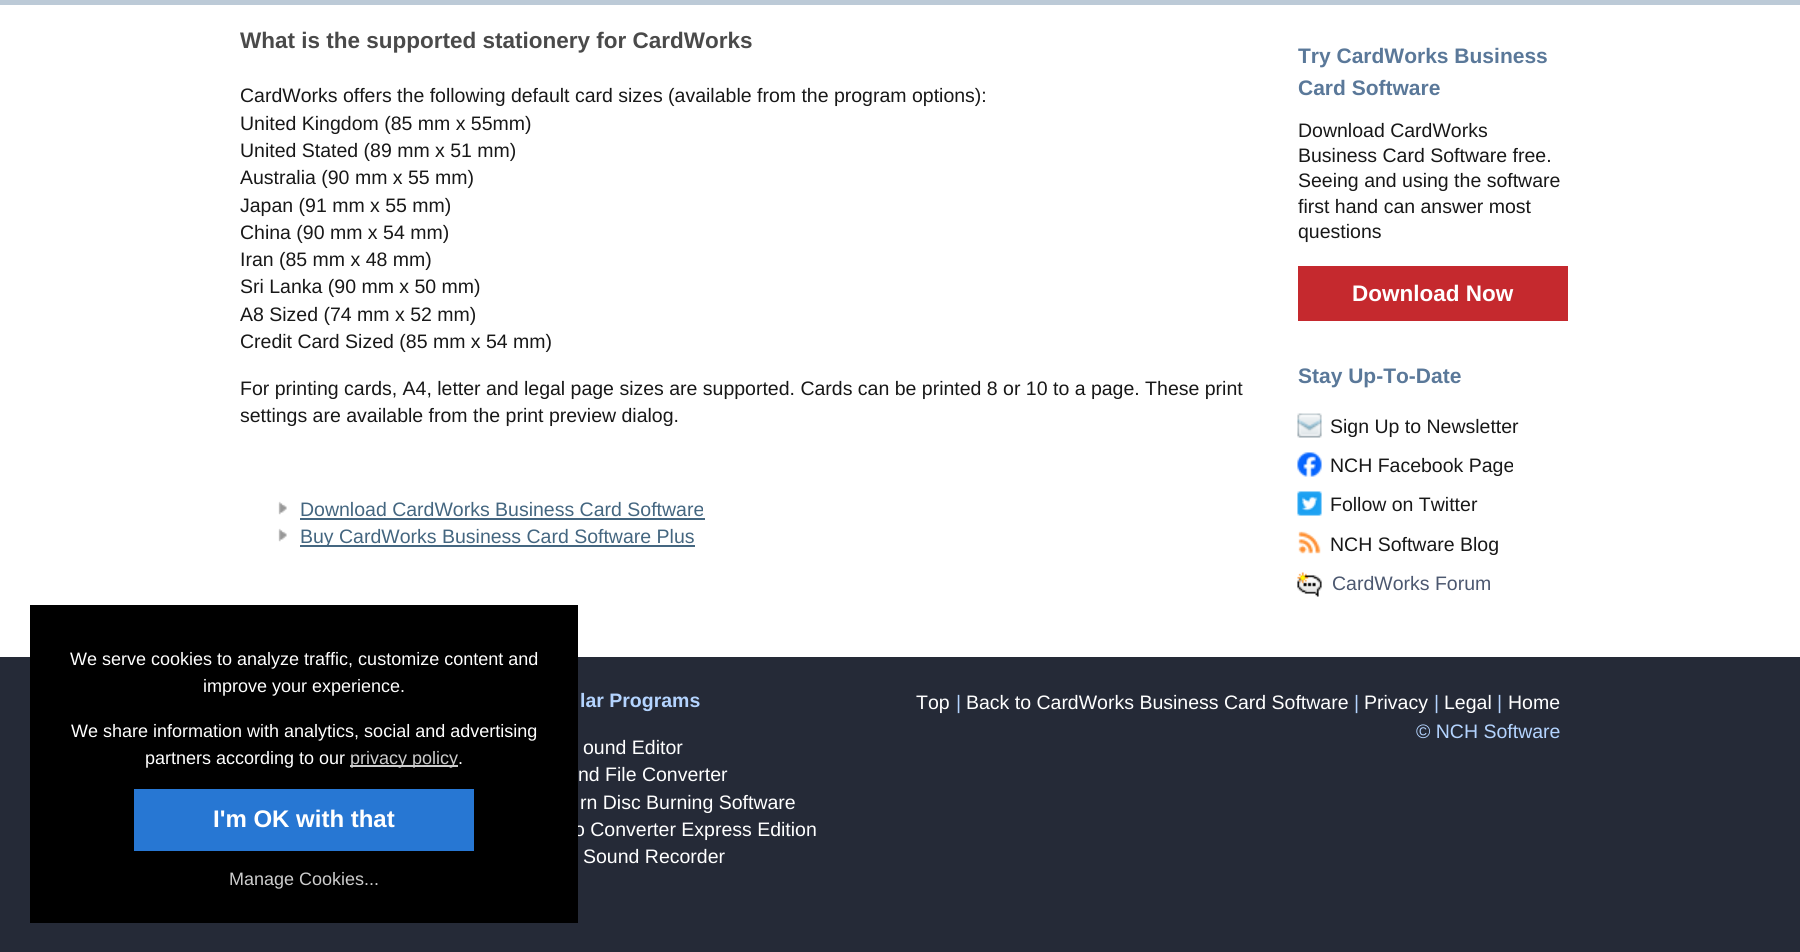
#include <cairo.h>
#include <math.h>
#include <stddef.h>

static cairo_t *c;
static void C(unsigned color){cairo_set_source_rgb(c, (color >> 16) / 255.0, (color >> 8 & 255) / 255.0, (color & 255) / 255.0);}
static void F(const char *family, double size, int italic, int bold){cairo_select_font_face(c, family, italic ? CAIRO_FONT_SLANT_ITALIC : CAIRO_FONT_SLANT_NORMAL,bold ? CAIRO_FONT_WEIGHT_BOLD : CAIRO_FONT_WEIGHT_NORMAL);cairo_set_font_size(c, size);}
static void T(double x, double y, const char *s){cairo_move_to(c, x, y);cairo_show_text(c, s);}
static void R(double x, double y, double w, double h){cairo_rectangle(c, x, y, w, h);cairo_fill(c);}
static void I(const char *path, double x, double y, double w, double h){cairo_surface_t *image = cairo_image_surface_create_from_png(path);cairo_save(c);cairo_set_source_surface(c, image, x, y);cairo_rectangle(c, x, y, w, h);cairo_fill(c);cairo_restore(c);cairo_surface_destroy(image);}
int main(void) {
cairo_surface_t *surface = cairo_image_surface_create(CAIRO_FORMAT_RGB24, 1800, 952);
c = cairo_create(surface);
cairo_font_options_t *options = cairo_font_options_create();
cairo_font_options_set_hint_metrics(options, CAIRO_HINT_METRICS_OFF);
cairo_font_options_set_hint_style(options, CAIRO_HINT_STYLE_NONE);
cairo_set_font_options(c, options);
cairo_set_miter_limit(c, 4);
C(0xffffff);
cairo_paint(c);
C(0xbccad7);
R(0,0,1800,5);
F("Liberation Sans",22.5,0,1);
C(0x4a4a4a);
T(240,48,"What is the supported stationery for CardWorks");
F("Liberation Sans",19.5,0,0);
C(0x181818);
T(240,102,"CardWorks offers the following default card sizes (available from the program options):");
T(240,130,"United Kingdom (85 mm x 55mm)");
T(240,157,"United Stated (89 mm x 51 mm)");
T(240,184,"Australia (90 mm x 55 mm)");
T(240,212,"Japan (91 mm x 55 mm)");
T(240,239,"China (90 mm x 54 mm)");
T(240,266,"Iran (85 mm x 48 mm)");
T(240,293,"Sri Lanka (90 mm x 50 mm)");
T(240,321,"A8 Sized (74 mm x 52 mm)");
T(240,348,"Credit Card Sized (85 mm x 54 mm)");
T(240,395,"For printing cards, A4, letter and legal page sizes are supported. Cards can be printed 8 or 10 to a page. These print");
T(240,422,"settings are available from the print preview dialog.");
I("1.png",278,501,9,14);
C(0x446680);
T(300,516,"Download CardWorks Business Card Software");
R(300,518,405,2);
I("1.png",278,528,9,14);
R(300,545,395,2);
T(300,543,"Buy CardWorks Business Card Software Plus");
F("Liberation Sans",21,0,1);
C(0x5a7899);
T(1298,63,"Try CardWorks Business");
T(1298,95,"Card Software");
F("Liberation Sans",19.5,0,0);
C(0x181818);
T(1298,137,"Download CardWorks");
T(1298,162,"Business Card Software free.");
T(1298,187,"Seeing and using the software");
T(1298,213,"first hand can answer most");
T(1298,238,"questions");
C(0xc5292e);
R(1298,266,270,55);
F("Liberation Sans",22.5,0,1);
C(0xffffff);
T(1352,301,"Download Now");
F("Liberation Sans",21,0,1);
C(0x5a7899);
T(1298,383,"Stay Up-To-Date");
I("2.png",1297,413,25,25);
F("Liberation Sans",19.5,0,0);
C(0x181818);
T(1330,433,"Sign Up to Newsletter");
I("3.png",1297,452,25,25);
T(1330,472,"NCH Facebook Page");
I("4.png",1297,491,25,25);
T(1330,511,"Follow on Twitter");
I("5.png",1298,531,23,23);
T(1330,551,"NCH Software Blog");
I("6.png",1297,572,25,25);
C(0x4c5870);
T(1332,590,"CardWorks Forum");
C(0x252a37);
R(0,657,1800,295);
C(0xffffff);
T(574,836,"o Converter Express Edition");
C(0x000000);
R(30,605,548,318);
F("Liberation Sans",18,0,0);
C(0xffffff);
T(70,665,"We serve cookies to analyze traffic, customize content and");
T(203,692,"improve your experience.");
T(71,737,"We share information with analytics, social and advertising");
T(145,764,"partners according to our");
C(0xcccccc);
R(350,765,108,2);
T(350,764,"privacy policy");
C(0xffffff);
T(458,764,".");
C(0x2777d3);
R(134,789,340,62);
F("Liberation Sans",24,0,1);
C(0xffffff);
T(213,827,"I'm OK with that");
F("Liberation Sans",18,0,0);
C(0xcccccc);
T(229,885,"Manage Cookies...");
F("Liberation Sans",19.5,0,1);
C(0xb4d4ff);
T(580,707,"lar Programs");
F("Liberation Sans",19.5,0,0);
C(0xffffff);
T(583,754,"ound Editor");
T(578,781,"nd File Converter");
T(580,809,"rn Disc Burning Software");
T(583,863,"Sound Recorder");
T(916,709,"Top");
C(0xb4d4ff);
T(956,709,"|");
C(0xffffff);
T(966,709,"Back to CardWorks Business Card Software");
C(0xb4d4ff);
T(1354,709,"|");
C(0xffffff);
T(1364,709,"Privacy");
C(0xb4d4ff);
T(1434,709,"|");
C(0xffffff);
T(1444,709,"Legal");
C(0xb4d4ff);
T(1497,709,"|");
C(0xffffff);
T(1508,709,"Home");
C(0xb4d4ff);
T(1416,738,"© NCH Software");
cairo_surface_write_to_png(surface, "o.png");
cairo_font_options_destroy(options);
cairo_destroy(c);
cairo_surface_destroy(surface);
return 0;
}
